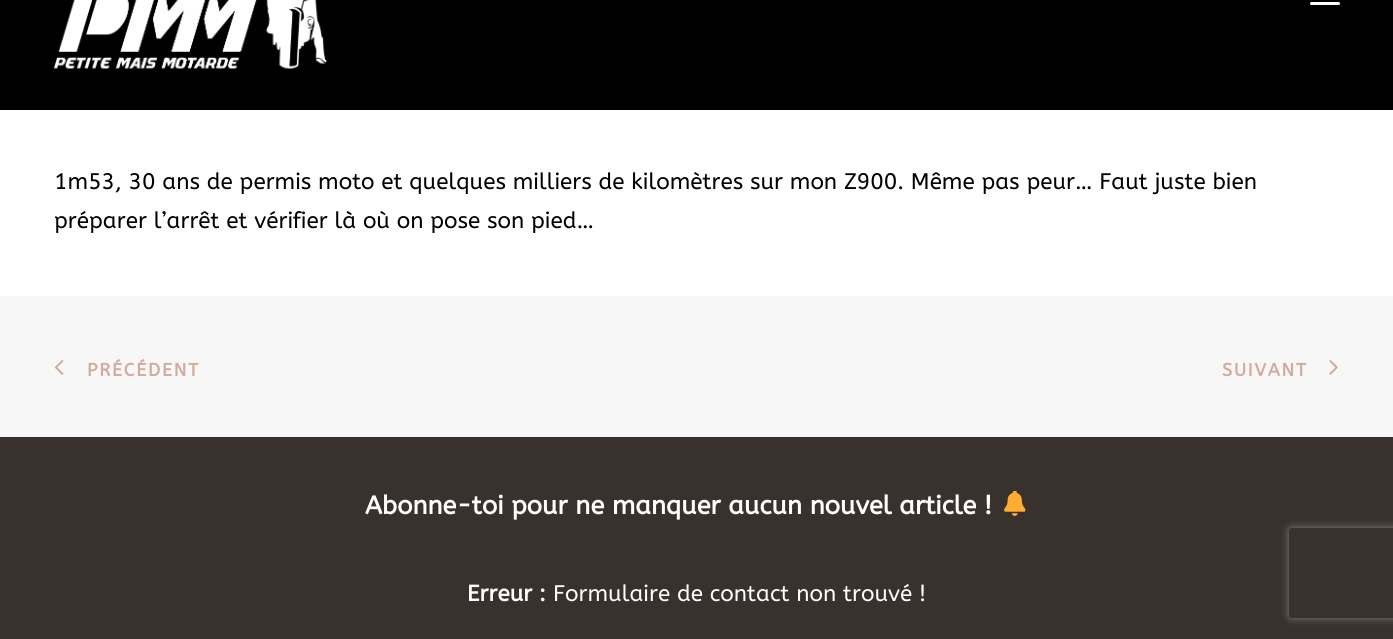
#include <cairo.h>
#include <math.h>
#include <stddef.h>

static cairo_t *c;
static void C(unsigned color){cairo_set_source_rgb(c, (color >> 16) / 255.0, (color >> 8 & 255) / 255.0, (color & 255) / 255.0);}
static void F(const char *family, double size, int italic, int bold){cairo_select_font_face(c, family, italic ? CAIRO_FONT_SLANT_ITALIC : CAIRO_FONT_SLANT_NORMAL,bold ? CAIRO_FONT_WEIGHT_BOLD : CAIRO_FONT_WEIGHT_NORMAL);cairo_set_font_size(c, size);}
static void T(double x, double y, const char *s){cairo_move_to(c, x, y);cairo_show_text(c, s);}
static void L(double x, double y, const char *s, double letter, double word){cairo_move_to(c, x, y);while (*s) {char ch[5] = {0};int n = 0;do ch[n++] = *s++; while ((*s & 0xC0) == 0x80);cairo_show_text(c, ch);cairo_rel_move_to(c, letter + word * (*ch == ' '), 0);}}
static void R(double x, double y, double w, double h){cairo_rectangle(c, x, y, w, h);cairo_fill(c);}
static void Q(double x, double y, double w, double h, double r){cairo_new_sub_path(c);cairo_arc(c, x + w - r, y + h - r, r, 0, M_PI / 2);cairo_arc(c, x + r, y + h - r, r, M_PI / 2, M_PI);cairo_arc(c, x + r, y + r, r, M_PI, 1.5 * M_PI);cairo_arc(c, x + w - r, y + r, r, 1.5 * M_PI, 2 * M_PI);cairo_close_path(c);}
static void S(double x, double y, double w, double h, double r, double blur, double alpha){cairo_push_group_with_content(c, CAIRO_CONTENT_ALPHA);cairo_set_operator(c, CAIRO_OPERATOR_SOURCE);for (int i = 15; i >= -15 && fmin(w, h) + blur * i / 3 > 0; i -= 2) {double e = blur * i / 6;cairo_set_source_rgba(c, 0, 0, 0, alpha * erfc((i - 1) / 8.5) / 2);Q(x - e, y - e, w + 2 * e, h + 2 * e, fmax(0, fmin(r + e + blur * .6, fmin(w, h) / 2 + e)));cairo_fill(c);}cairo_pattern_t *soft = cairo_pop_group(c);cairo_mask(c, soft);cairo_pattern_destroy(soft);}
static void I(const char *path, double x, double y, double w, double h){cairo_surface_t *image = cairo_image_surface_create_from_png(path);cairo_save(c);cairo_set_source_surface(c, image, x, y);cairo_rectangle(c, x, y, w, h);cairo_fill(c);cairo_restore(c);cairo_surface_destroy(image);}
int main(void) {
cairo_surface_t *surface = cairo_image_surface_create(CAIRO_FORMAT_RGB24, 1393, 639);
c = cairo_create(surface);
cairo_font_options_t *options = cairo_font_options_create();
cairo_font_options_set_hint_metrics(options, CAIRO_HINT_METRICS_OFF);
cairo_font_options_set_hint_style(options, CAIRO_HINT_STYLE_NONE);
cairo_set_font_options(c, options);
cairo_set_miter_limit(c, 4);
C(0xffffff);
cairo_paint(c);
C(0x000000);
R(0,0,1393,110);
I("1.png",54,0,273,69);
C(0xffffff);
Q(1310,2,30,3,1.5);
cairo_fill(c);
F("ABeeZee",22.5,0,0);
C(0x000000);
T(54,189,"1m53, 30 ans de permis moto et quelques milliers de kilomètres sur mon Z900. Même pas peur… Faut juste bien");
T(54,228,"préparer l’arrêt et vérifier là où on pose son pied…");
C(0xf7f7f7);
R(0,296,1393,141);
I("2.png",54,359,10,16);
F("ABeeZee",18,0,1);
C(0xd3ab9e);
L(87,376,"PRÉCÉDENT",1.75,0);
L(1222,376,"SUIVANT",1.75,0);
I("3.png",1329,359,9,16);
C(0x39312e);
R(0,437,1393,202);
F("ABeeZee",25.5,0,1);
C(0xffffff);
T(365,514,"Abonne-toi pour ne manquer aucun nouvel article !");
I("4.png",1004,491,22,25);
F("ABeeZee",22.5,0,1);
T(467,601,"Erreur :");
F("ABeeZee",22.5,0,0);
T(553,601,"Formulaire de contact non trouvé !");
cairo_save(c);
cairo_set_fill_rule(c,CAIRO_FILL_RULE_EVEN_ODD);
cairo_new_path(c);
cairo_move_to(c,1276,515);
cairo_line_to(c,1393,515);
cairo_line_to(c,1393,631);
cairo_line_to(c,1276,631);
cairo_close_path(c);
cairo_move_to(c,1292,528);
cairo_line_to(c,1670,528);
cairo_curve_to(c,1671.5,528,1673,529.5,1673,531);
cairo_line_to(c,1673,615);
cairo_curve_to(c,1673,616.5,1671.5,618,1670,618);
cairo_line_to(c,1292,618);
cairo_curve_to(c,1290.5,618,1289,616.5,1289,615);
cairo_line_to(c,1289,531);
cairo_curve_to(c,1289,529.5,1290.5,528,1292,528);
cairo_close_path(c);
cairo_clip(c);
C(0x808080);
S(1289,528,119,90,3,4,1);
cairo_restore(c);
cairo_surface_write_to_png(surface, "o.png");
cairo_font_options_destroy(options);
cairo_destroy(c);
cairo_surface_destroy(surface);
return 0;
}
